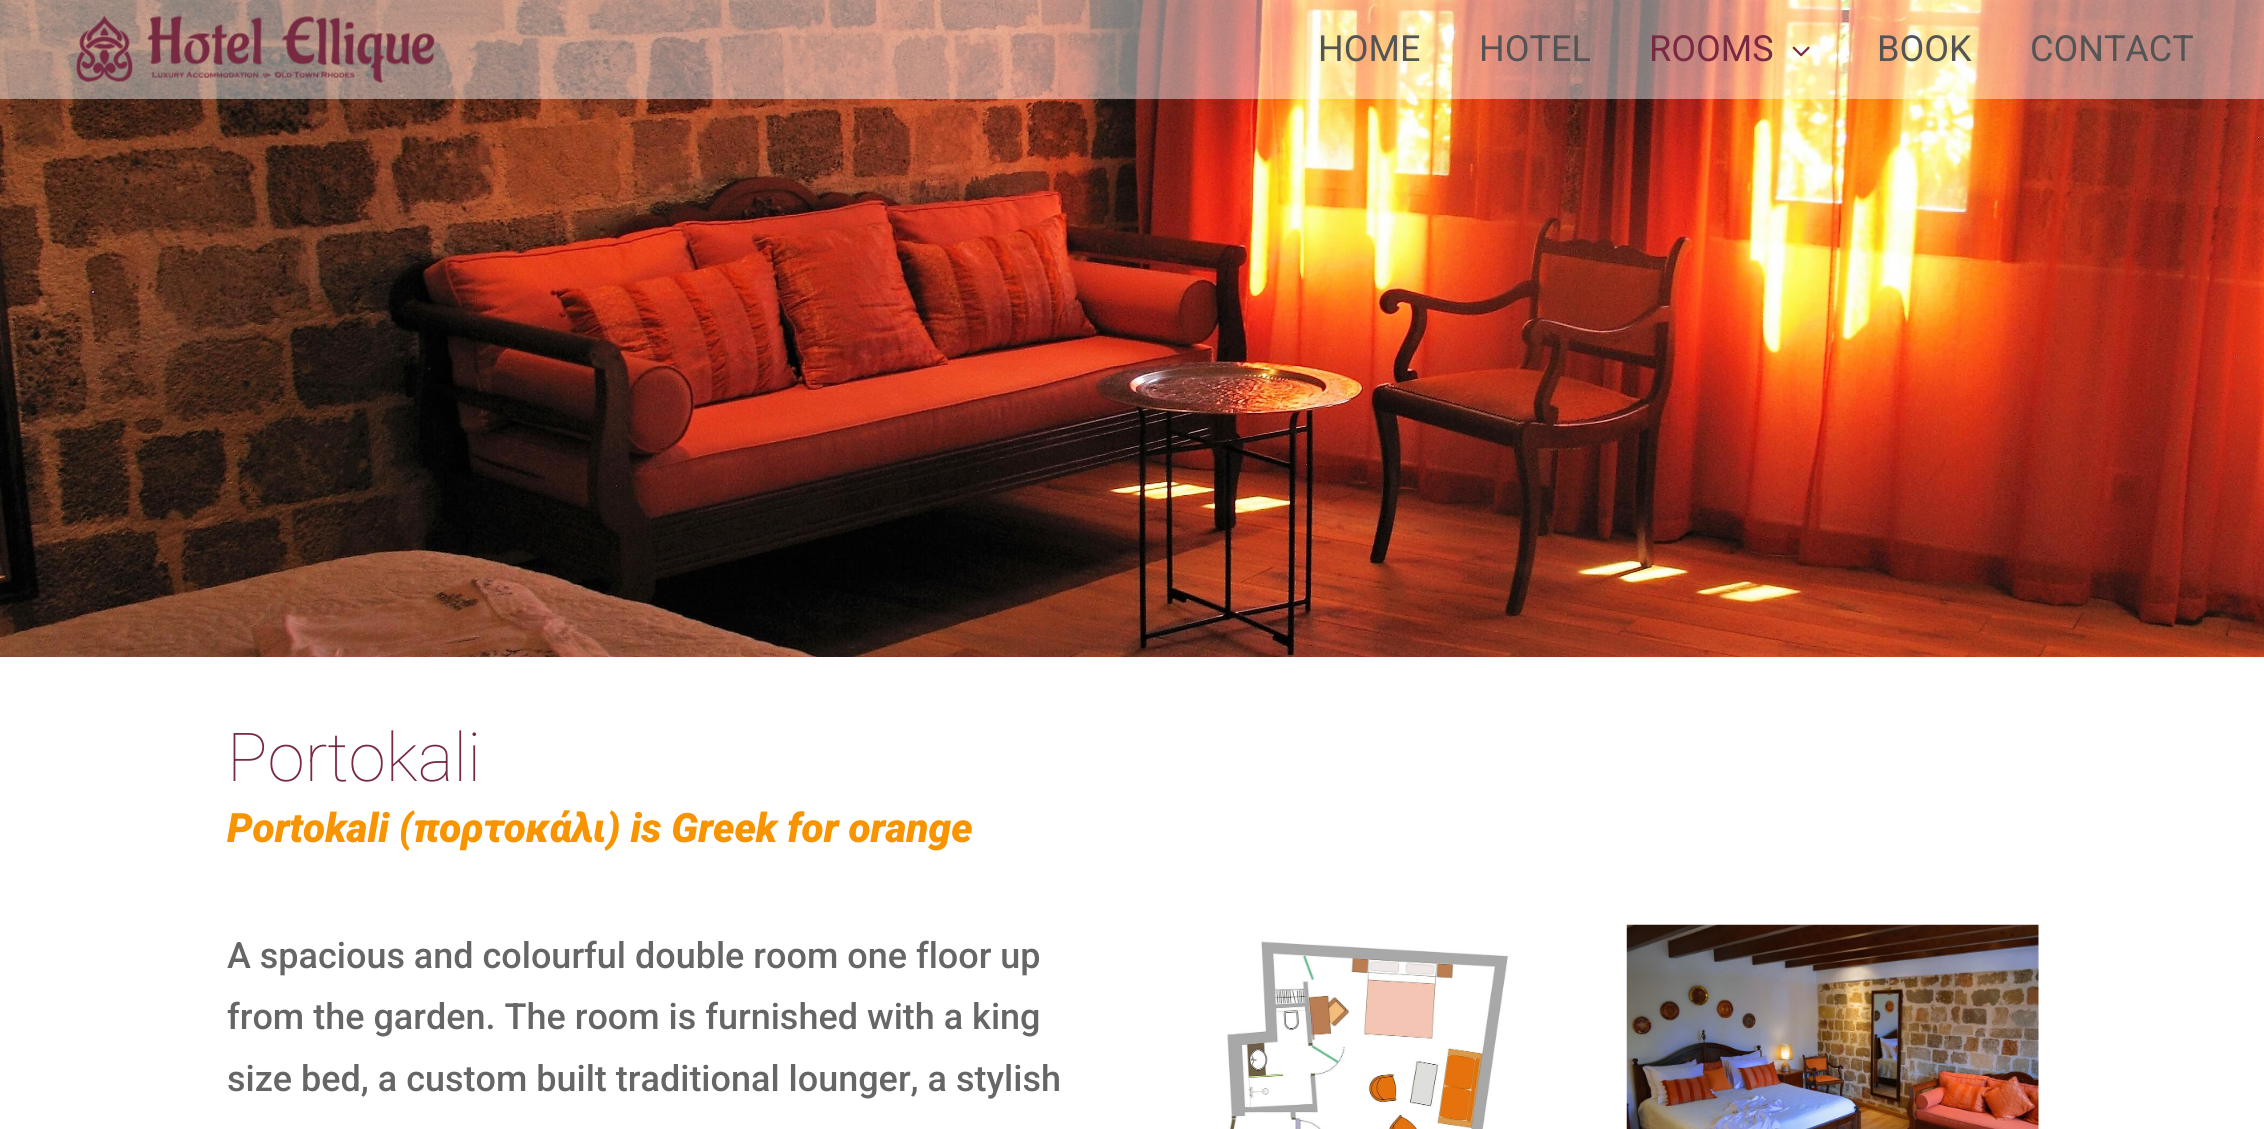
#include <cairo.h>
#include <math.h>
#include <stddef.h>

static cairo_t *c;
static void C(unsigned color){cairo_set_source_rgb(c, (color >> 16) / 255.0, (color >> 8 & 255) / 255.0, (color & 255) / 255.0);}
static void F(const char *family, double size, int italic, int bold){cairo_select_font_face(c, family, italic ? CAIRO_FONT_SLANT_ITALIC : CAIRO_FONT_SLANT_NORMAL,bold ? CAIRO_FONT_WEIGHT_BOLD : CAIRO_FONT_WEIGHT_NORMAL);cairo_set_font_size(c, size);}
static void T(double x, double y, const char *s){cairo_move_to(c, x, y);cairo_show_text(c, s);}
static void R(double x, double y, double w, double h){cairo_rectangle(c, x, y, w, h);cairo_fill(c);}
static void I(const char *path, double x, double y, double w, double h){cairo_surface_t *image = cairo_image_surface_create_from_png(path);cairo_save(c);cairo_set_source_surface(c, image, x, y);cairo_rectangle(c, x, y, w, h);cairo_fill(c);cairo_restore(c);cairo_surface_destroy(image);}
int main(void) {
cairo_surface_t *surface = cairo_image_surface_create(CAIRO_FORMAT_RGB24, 2264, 1129);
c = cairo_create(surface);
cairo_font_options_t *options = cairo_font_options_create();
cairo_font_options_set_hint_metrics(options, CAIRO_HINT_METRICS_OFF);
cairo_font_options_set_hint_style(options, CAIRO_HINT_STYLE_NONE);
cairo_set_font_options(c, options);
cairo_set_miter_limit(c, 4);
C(0xffffff);
cairo_paint(c);
I("3.png",0,0,2264,657);
cairo_set_source_rgba(c,1,1,1,0.45);
R(0,0,2264,99);
I("1.png",76,15,359,68);
F("Roboto",36,0,0);
C(0x545454);
T(1318,61,"HOME");
T(1479,61,"HOTEL");
C(0x792a43);
T(1649,61,"ROOMS");
I("2.png",1792,46,18,11);
C(0x545454);
T(1877,61,"BOOK");
T(2030,61,"CONTACT");
F("Roboto Thin",67.5,0,0);
C(0x792a43);
T(227,781,"Portokali");
F("Roboto Black",40.5,1,0);
C(0xf79400);
T(227,842,"Portokali (πορτοκάλι) is Greek for orange");
F("Roboto Medium",36,0,0);
C(0x666666);
T(227,968,"A spacious and colourful double room one floor up");
T(227,1029,"from the garden. The room is furnished with a king");
T(227,1091,"size bed, a custom built traditional lounger, a stylish");
I("4.png",1227,941,281,188);
I("5.png",1626,924,413,205);
cairo_surface_write_to_png(surface, "o.png");
cairo_font_options_destroy(options);
cairo_destroy(c);
cairo_surface_destroy(surface);
return 0;
}
